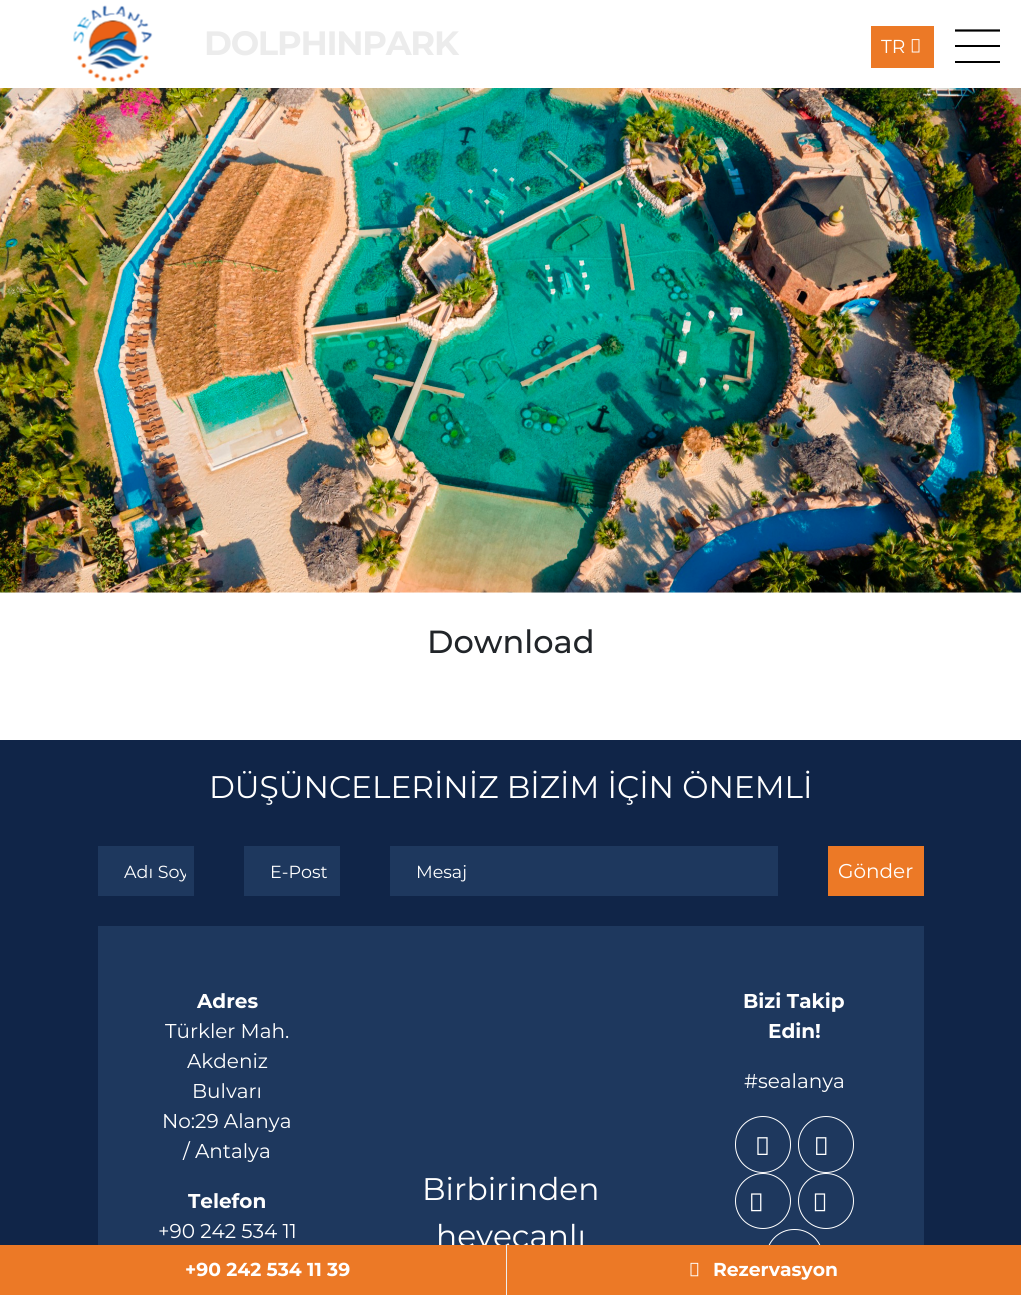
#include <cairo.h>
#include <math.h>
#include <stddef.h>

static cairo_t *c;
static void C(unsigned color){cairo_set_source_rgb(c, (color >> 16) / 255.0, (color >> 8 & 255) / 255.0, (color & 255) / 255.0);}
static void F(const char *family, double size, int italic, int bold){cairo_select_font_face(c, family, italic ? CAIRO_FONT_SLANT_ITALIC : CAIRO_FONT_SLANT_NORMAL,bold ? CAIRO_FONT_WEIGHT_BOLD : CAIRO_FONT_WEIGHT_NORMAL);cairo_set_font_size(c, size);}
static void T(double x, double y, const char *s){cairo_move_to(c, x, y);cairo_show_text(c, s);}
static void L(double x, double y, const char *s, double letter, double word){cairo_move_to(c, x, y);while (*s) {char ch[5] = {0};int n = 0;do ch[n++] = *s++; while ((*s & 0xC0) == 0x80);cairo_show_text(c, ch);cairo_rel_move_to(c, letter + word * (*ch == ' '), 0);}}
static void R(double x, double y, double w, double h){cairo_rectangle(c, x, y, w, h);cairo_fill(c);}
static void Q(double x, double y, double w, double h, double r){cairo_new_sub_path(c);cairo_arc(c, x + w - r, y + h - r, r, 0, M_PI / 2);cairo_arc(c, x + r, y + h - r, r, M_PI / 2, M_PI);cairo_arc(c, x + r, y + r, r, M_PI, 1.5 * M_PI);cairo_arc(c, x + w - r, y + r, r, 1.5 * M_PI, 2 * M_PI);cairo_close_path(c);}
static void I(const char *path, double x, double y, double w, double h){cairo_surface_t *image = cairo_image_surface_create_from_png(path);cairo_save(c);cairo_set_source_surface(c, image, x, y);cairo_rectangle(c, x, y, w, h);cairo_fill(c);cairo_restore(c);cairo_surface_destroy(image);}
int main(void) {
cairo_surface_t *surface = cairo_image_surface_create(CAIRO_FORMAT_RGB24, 1021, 1295);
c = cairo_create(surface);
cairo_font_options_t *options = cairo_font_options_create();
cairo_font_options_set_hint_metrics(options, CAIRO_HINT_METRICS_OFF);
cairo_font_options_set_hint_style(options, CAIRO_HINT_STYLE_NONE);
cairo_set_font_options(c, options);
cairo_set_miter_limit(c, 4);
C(0xffffff);
cairo_paint(c);
I("1.png",73,5,80,78);
F("Montserrat",33.75,0,1);
C(0xececec);
L(204,55,"DOLPHINPARK",-1.25,0);
C(0xec7926);
R(871,26,63,42);
F("Montserrat",18.75,0,0);
C(0xffffff);
T(881,53,"TR");
I("2.png",911,39,9,14);
cairo_new_path(c);
cairo_move_to(c,955,30.5);
cairo_line_to(c,1000,30.5);
C(0x000000);
cairo_set_line_width(c,2.2);
cairo_stroke(c);
R(955,45,45,2);
R(955,61,45,2);
I("3.png",0,88,1021,505);
F("Montserrat Medium",32,0,0);
C(0x212529);
T(427,653,"Download");
C(0x102548);
R(0,740,1021,505);
F("Montserrat",31.25,0,0);
C(0xffffff);
T(209,798,"DÜŞÜNCELERİNİZ BİZİM İÇİN ÖNEMLİ");
C(0x1e385e);
R(98,846,96,50);
cairo_save(c);
cairo_rectangle(c,124,860,62,23);
cairo_clip(c);
F("Montserrat",17.5,0,0);
C(0xffffff);
T(124,878,"Adı Soy");
cairo_restore(c);
R(244,846,96,50);
F("Montserrat",17.5,0,0);
C(0xffffff);
T(270,878,"E-Post");
C(0x1e385e);
R(390,846,388,50);
C(0xffffff);
T(416,878,"Mesaj");
C(0xec7926);
R(828,846,96,50);
F("Montserrat",20,0,0);
C(0xffffff);
T(838,878,"Gönder");
C(0x1e385e);
R(98,926,826,319);
F("Montserrat",20,0,1);
C(0xffffff);
T(197,1008,"Adres");
F("Montserrat",20,0,0);
T(165,1038,"Türkler Mah.");
T(187,1068,"Akdeniz");
T(192,1098,"Bulvarı");
T(162,1128,"No:29 Alanya");
T(183,1158,"/ Antalya");
F("Montserrat",20,0,1);
T(188,1208,"Telefon");
F("Montserrat",20,0,0);
T(158,1238,"+90 242 534 11");
F("Montserrat",31.25,0,0);
T(422,1200,"Birbirinden");
T(436,1247,"heyecanlı");
F("Montserrat",20,0,1);
T(743,1008,"Bizi Takip");
T(768,1038,"Edin!");
F("Montserrat",20,0,0);
T(744,1088,"#sealanya");
Q(735.5,1116.5,55,56,27.5);
cairo_set_line_width(c,1);
cairo_stroke(c);
I("4.png",757,1137,11,18);
Q(798.5,1116.5,55,56,27.5);
cairo_stroke(c);
I("5.png",816,1137,11,18);
cairo_arc(c,763,1201,27.5,0,2 * M_PI);
cairo_stroke(c);
I("6.png",751,1193,11,19);
cairo_arc(c,826,1201,27.5,0,2 * M_PI);
cairo_stroke(c);
I("7.png",814,1193,12,19);
Q(766.5,1229.5,56,55,27.5);
cairo_stroke(c);
C(0xec7926);
R(0,1245,1021,50);
C(0xeeeeee);
R(506,1245,1,50);
F("Montserrat",18.75,0,1);
C(0xffffff);
T(185,1276,"+90 242 534 11 39");
I("8.png",690,1262,9,15);
T(713,1276,"Rezervasyon");
cairo_surface_write_to_png(surface, "o.png");
cairo_font_options_destroy(options);
cairo_destroy(c);
cairo_surface_destroy(surface);
return 0;
}
